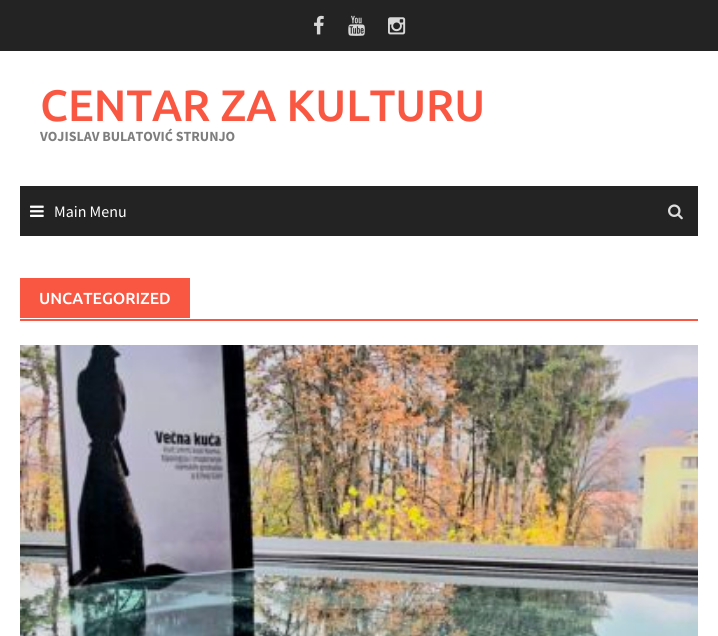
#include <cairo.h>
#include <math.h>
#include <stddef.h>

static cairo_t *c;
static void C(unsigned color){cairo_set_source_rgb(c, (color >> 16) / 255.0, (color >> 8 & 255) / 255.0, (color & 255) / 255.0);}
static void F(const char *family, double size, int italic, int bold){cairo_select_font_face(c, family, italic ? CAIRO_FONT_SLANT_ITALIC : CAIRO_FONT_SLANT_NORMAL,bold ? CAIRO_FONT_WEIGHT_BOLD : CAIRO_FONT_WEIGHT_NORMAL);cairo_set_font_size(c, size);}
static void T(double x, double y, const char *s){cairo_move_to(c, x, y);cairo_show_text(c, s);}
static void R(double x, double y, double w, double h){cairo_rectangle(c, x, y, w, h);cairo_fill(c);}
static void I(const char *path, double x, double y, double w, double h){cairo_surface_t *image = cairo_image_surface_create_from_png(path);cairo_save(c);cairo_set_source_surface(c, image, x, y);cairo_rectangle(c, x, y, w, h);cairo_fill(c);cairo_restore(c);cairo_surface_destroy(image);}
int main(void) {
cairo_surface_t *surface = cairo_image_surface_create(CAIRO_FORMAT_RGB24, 718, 636);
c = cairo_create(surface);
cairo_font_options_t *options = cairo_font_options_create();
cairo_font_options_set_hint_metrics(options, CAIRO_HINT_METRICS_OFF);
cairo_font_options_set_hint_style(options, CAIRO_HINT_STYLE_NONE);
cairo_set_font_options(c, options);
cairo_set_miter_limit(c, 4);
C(0xffffff);
cairo_paint(c);
C(0x232323);
R(0,0,718,51);
I("1.png",314,15,10,20);
I("2.png",348,15,17,21);
I("3.png",388,17,18,18);
F("Ubuntu Medium",44,0,0);
C(0xfa5742);
T(40,121,"CENTAR ZA KULTURU");
F("Source Sans Pro",14,0,1);
C(0x7e7e7e);
T(40,141,"VOJISLAV BULATOVIĆ STRUNJO");
C(0x232323);
R(20,186,678,50);
I("4.png",30,205,14,12);
F("Source Sans Pro",16,0,0);
C(0xffffff);
T(54,217,"Main Menu");
I("5.png",668,204,15,16);
C(0xfa5742);
R(20,319,678,2);
R(20,278,170,40);
F("Ubuntu Medium",16,0,0);
C(0xffffff);
T(39,304,"UNCATEGORIZED");
I("6.png",20,345,678,291);
cairo_surface_write_to_png(surface, "o.png");
cairo_font_options_destroy(options);
cairo_destroy(c);
cairo_surface_destroy(surface);
return 0;
}
